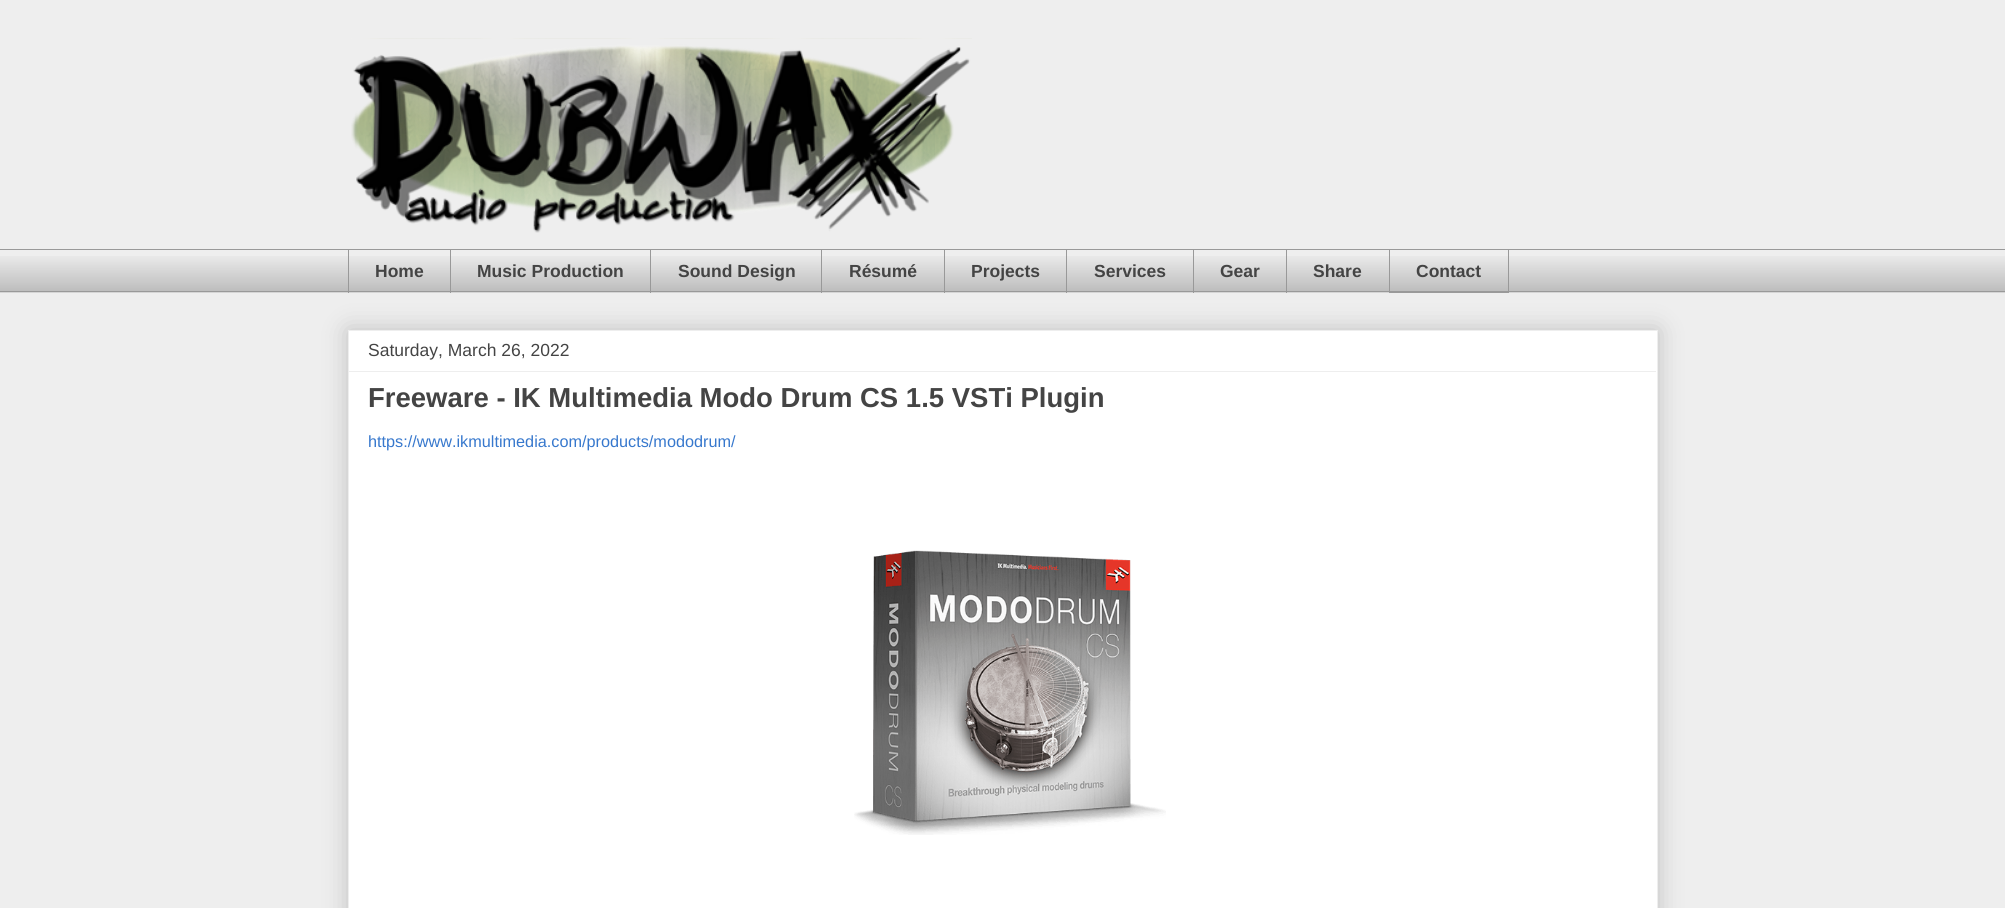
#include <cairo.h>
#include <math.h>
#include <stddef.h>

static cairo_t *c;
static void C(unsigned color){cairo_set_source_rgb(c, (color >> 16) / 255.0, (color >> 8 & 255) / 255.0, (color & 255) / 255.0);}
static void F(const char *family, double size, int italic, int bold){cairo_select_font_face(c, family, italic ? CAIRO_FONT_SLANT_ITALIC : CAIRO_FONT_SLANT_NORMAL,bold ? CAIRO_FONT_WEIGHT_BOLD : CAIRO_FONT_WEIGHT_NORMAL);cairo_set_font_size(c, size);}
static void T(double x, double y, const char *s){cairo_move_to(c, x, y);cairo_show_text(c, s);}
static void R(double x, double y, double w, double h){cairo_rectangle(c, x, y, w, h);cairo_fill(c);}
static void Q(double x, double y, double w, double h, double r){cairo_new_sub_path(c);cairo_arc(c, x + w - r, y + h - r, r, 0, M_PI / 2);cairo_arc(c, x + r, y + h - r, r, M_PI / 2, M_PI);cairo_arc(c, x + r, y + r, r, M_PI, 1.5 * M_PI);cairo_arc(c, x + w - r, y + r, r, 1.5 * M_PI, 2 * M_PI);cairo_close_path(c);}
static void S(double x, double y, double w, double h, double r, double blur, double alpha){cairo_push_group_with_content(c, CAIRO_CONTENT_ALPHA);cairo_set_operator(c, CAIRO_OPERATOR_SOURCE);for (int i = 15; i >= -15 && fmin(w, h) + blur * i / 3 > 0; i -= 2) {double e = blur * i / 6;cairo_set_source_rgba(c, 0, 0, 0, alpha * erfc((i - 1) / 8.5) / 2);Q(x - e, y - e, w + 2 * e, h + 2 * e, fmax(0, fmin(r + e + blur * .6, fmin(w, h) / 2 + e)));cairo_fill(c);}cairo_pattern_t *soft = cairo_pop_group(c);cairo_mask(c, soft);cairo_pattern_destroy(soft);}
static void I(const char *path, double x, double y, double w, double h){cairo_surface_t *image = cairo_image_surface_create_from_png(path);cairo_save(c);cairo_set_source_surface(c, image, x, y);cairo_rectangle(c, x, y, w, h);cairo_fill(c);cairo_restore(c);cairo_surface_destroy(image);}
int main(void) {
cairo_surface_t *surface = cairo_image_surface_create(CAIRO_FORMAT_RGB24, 2005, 908);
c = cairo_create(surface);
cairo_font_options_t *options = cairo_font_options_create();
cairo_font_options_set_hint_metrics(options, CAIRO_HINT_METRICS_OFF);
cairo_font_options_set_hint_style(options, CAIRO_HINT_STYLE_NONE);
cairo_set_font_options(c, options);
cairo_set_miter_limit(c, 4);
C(0xeeeeee);
cairo_paint(c);
I("1.png",351,38,621,195);
I("2.png",0,256,2005,37);
C(0x999999);
R(0,249,2005,1);
R(348,249,1,44);
F("Liberation Sans",17.5,0,1);
C(0x444444);
T(375,277,"Home");
C(0x999999);
R(450,249,1,44);
C(0x444444);
T(477,277,"Music Production");
C(0x999999);
R(650,249,1,44);
C(0x444444);
T(678,277,"Sound Design");
C(0x999999);
R(821,249,1,44);
C(0x444444);
T(849,277,"Résumé");
C(0x999999);
R(944,249,1,44);
C(0x444444);
T(971,277,"Projects");
C(0x999999);
R(1066,249,1,44);
C(0x444444);
T(1094,277,"Services");
C(0x999999);
R(1193,249,1,44);
C(0x444444);
T(1220,277,"Gear");
C(0x999999);
R(1286,249,1,44);
C(0x444444);
T(1313,277,"Share");
cairo_rectangle(c,1389.5,249.5,119,43);
C(0x999999);
cairo_set_line_width(c,1);
cairo_stroke(c);
C(0x444444);
T(1416,277,"Contact");
C(0x999999);
R(0,291,2005,1);
C(0x000000);
S(348,330,1310,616,0,12.5,.2);
C(0xffffff);
cairo_rectangle(c,348.5,330.5,1309,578);
cairo_fill_preserve(c);
C(0xeeeeee);
cairo_stroke(c);
F("Liberation Sans",17.5,0,0);
C(0x444444);
T(368,356,"Saturday, March 26, 2022");
C(0xeeeeee);
R(349,371,1307,1);
F("Liberation Sans",27.5,0,1);
C(0x444444);
T(368,407,"Freeware - IK Multimedia Modo Drum CS 1.5 VSTi Plugin");
F("Liberation Sans",16.25,0,0);
C(0x3778cd);
T(368,447,"https://www.ikmultimedia.com/products/mododrum/");
I("3.png",854,550,312,285);
cairo_surface_write_to_png(surface, "o.png");
cairo_font_options_destroy(options);
cairo_destroy(c);
cairo_surface_destroy(surface);
return 0;
}
